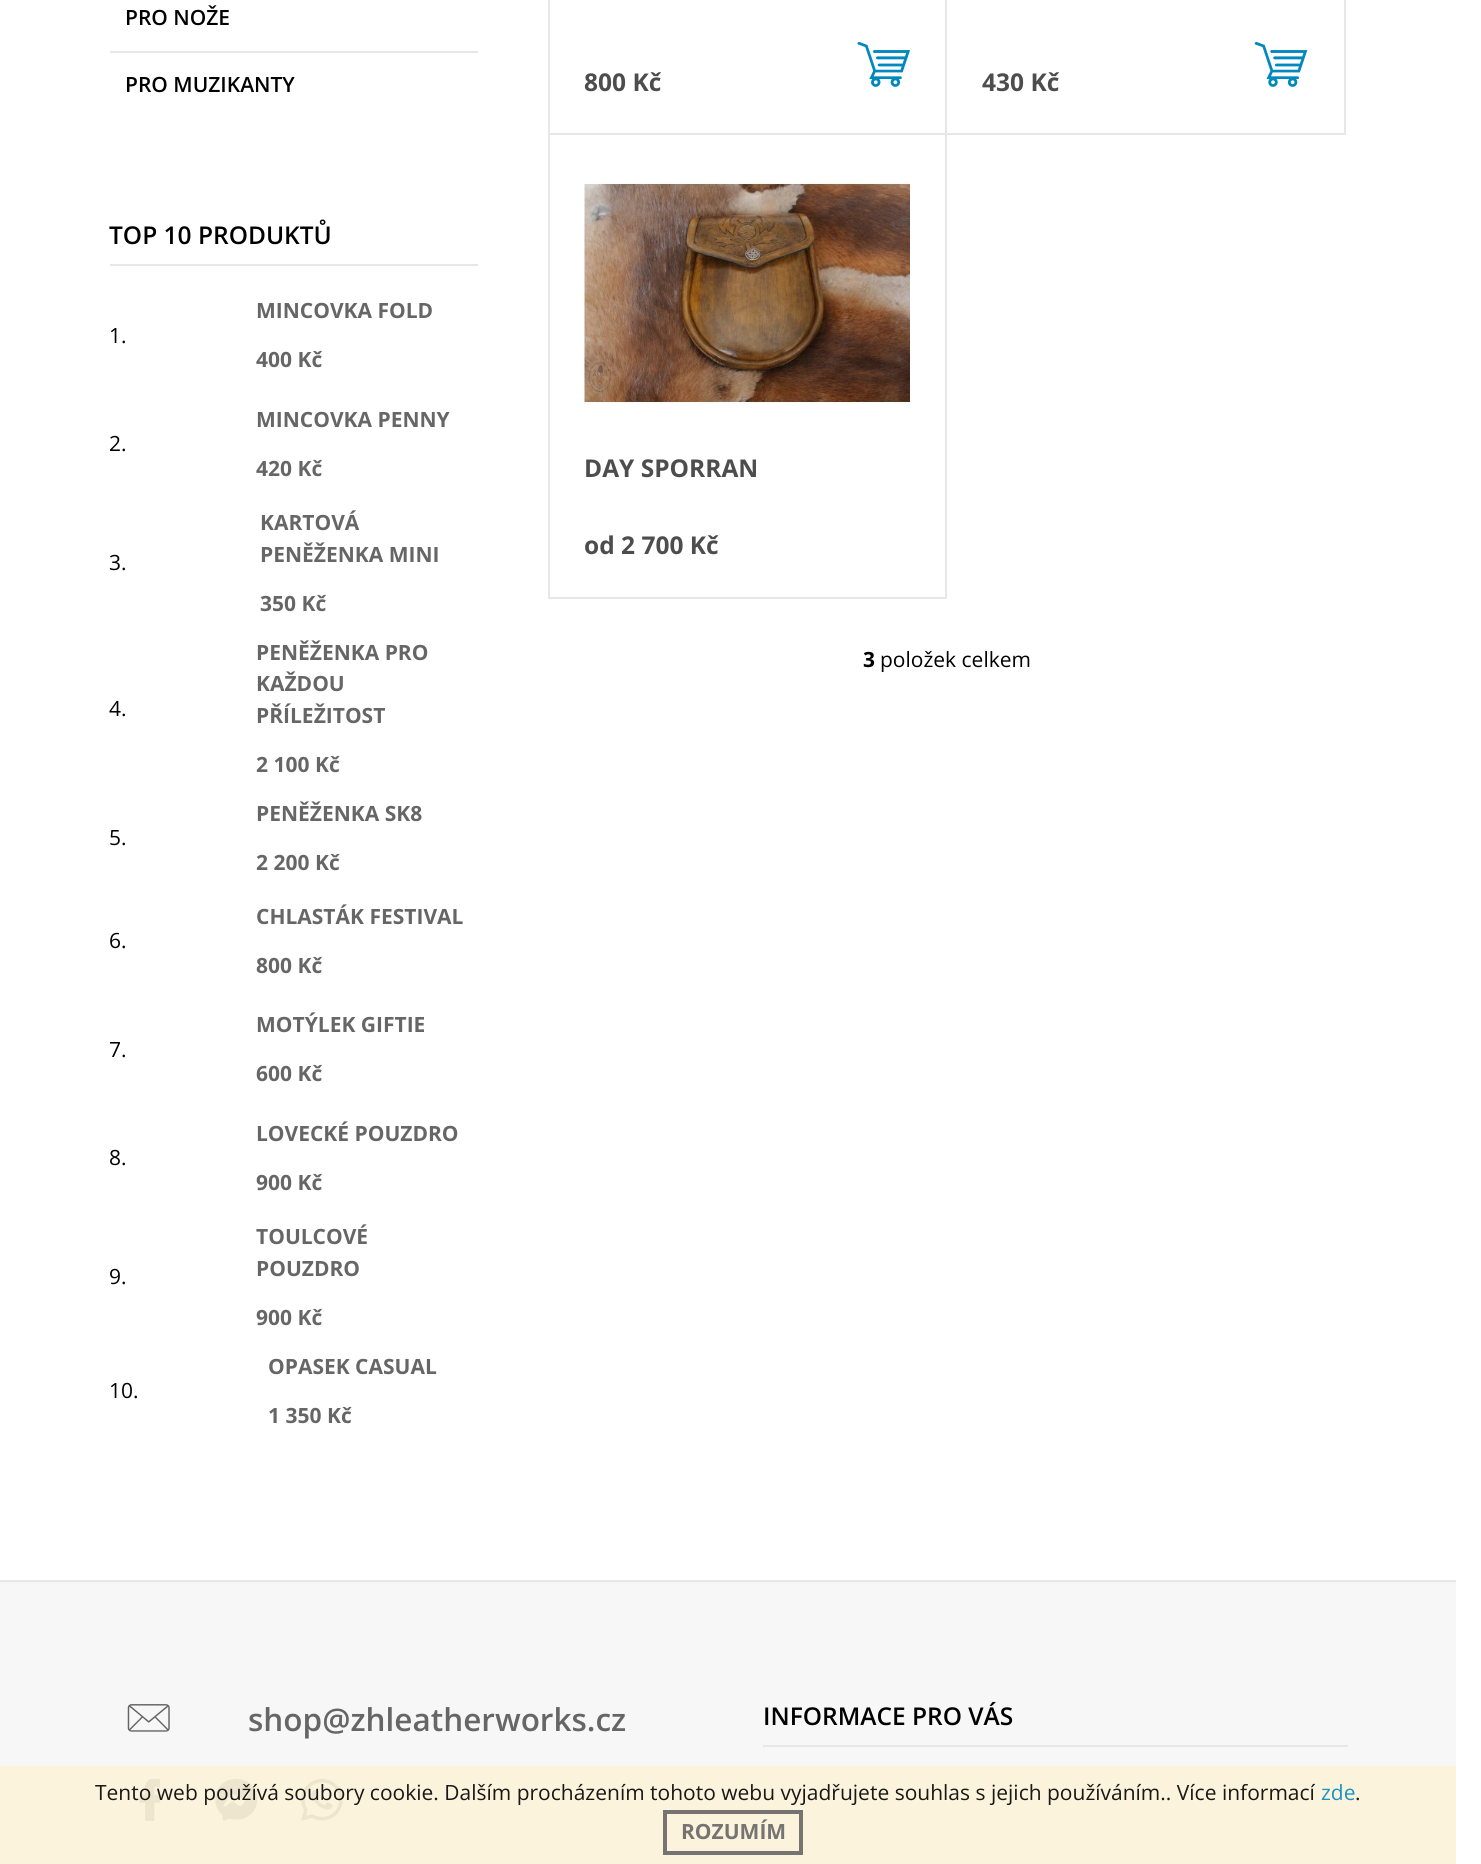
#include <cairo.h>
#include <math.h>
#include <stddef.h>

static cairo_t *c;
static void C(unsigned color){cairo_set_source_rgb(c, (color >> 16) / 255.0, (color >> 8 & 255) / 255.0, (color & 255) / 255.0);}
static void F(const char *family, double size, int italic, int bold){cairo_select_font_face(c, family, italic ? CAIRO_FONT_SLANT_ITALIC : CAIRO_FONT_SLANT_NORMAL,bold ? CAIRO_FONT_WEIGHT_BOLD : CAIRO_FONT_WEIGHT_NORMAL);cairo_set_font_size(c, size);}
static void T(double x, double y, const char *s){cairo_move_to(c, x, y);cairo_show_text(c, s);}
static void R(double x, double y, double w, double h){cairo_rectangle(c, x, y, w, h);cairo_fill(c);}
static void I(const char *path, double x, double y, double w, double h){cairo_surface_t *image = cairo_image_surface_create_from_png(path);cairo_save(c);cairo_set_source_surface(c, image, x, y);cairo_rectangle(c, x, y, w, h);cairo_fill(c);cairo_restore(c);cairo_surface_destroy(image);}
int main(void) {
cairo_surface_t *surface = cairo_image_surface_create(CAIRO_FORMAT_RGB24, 1481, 1864);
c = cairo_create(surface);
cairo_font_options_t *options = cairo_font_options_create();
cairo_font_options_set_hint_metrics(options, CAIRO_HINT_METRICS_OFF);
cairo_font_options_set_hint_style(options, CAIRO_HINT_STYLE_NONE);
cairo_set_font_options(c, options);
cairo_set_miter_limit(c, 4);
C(0xffffff);
cairo_paint(c);
F("Open Sans SemiBold",21,0,0);
C(0x000000);
T(125,25,"PRO NOŽE");
C(0xe7e7e7);
R(110,51,368,2);
C(0x000000);
T(125,92,"PRO MUZIKANTY");
C(0xe7e7e7);
R(110,264,368,2);
F("Open Sans SemiBold",24.5,0,0);
C(0x000000);
T(109,244,"TOP 10 PRODUKTŮ");
F("Open Sans",21,0,0);
T(109,343,"1.");
F("Open Sans",21,0,1);
C(0x666666);
T(256,318,"MINCOVKA FOLD");
T(256,367,"400 Kč");
F("Open Sans",21,0,0);
C(0x000000);
T(109,451,"2.");
F("Open Sans",21,0,1);
C(0x666666);
T(256,427,"MINCOVKA PENNY");
T(256,476,"420 Kč");
F("Open Sans",21,0,0);
C(0x000000);
T(109,570,"3.");
F("Open Sans",21,0,1);
C(0x666666);
T(260,530,"KARTOVÁ");
T(260,562,"PENĚŽENKA MINI");
T(260,611,"350 Kč");
F("Open Sans",21,0,0);
C(0x000000);
T(109,716,"4.");
F("Open Sans",21,0,1);
C(0x666666);
T(256,660,"PENĚŽENKA PRO");
T(256,691,"KAŽDOU");
T(256,723,"PŘÍLEŽITOST");
T(256,772,"2 100 Kč");
F("Open Sans",21,0,0);
C(0x000000);
T(109,845,"5.");
F("Open Sans",21,0,1);
C(0x666666);
T(256,821,"PENĚŽENKA SK8");
T(256,870,"2 200 Kč");
F("Open Sans",21,0,0);
C(0x000000);
T(109,948,"6.");
F("Open Sans",21,0,1);
C(0x666666);
T(256,924,"CHLASTÁK FESTIVAL");
T(256,973,"800 Kč");
F("Open Sans",21,0,0);
C(0x000000);
T(109,1057,"7.");
F("Open Sans",21,0,1);
C(0x666666);
T(256,1032,"MOTÝLEK GIFTIE");
T(256,1081,"600 Kč");
F("Open Sans",21,0,0);
C(0x000000);
T(109,1165,"8.");
F("Open Sans",21,0,1);
C(0x666666);
T(256,1141,"LOVECKÉ POUZDRO");
T(256,1190,"900 Kč");
F("Open Sans",21,0,0);
C(0x000000);
T(109,1284,"9.");
F("Open Sans",21,0,1);
C(0x666666);
T(256,1244,"TOULCOVÉ");
T(256,1276,"POUZDRO");
T(256,1325,"900 Kč");
F("Open Sans",21,0,0);
C(0x000000);
T(109,1398,"10.");
F("Open Sans",21,0,1);
C(0x666666);
T(268,1374,"OPASEK CASUAL");
T(268,1423,"1 350 Kč");
cairo_rectangle(c,549,-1,397,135);
C(0xe7e7e7);
cairo_stroke(c);
F("Open Sans",24.5,0,1);
C(0x4d4d4d);
T(584,91,"800 Kč");
I("1.png",857,41,53,46);
cairo_rectangle(c,946,-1,399,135);
C(0xe7e7e7);
cairo_stroke(c);
C(0x4d4d4d);
T(982,91,"430 Kč");
I("2.png",1254,41,54,46);
cairo_rectangle(c,549,134,397,464);
C(0xe7e7e7);
cairo_stroke(c);
I("3.png",584,182,326,223);
C(0x4d4d4d);
T(584,477,"DAY SPORRAN");
T(584,554,"od 2 700 Kč");
F("Open Sans",21,0,1);
C(0x000000);
T(863,667,"3");
F("Open Sans",21,0,0);
T(880,667,"položek celkem");
C(0xf7f7f7);
R(0,1582,1456,184);
C(0xfcf3dd);
R(0,1766,1456,98);
C(0xe7e7e7);
R(0,1580,1456,2);
I("4.png",127,1704,43,28);
F("Open Sans SemiBold",31.5,0,0);
C(0x666666);
T(248,1731,"shop@zhleatherworks.cz");
I("5.png",139,1778,23,43);
I("6.png",215,1778,43,43);
I("7.png",301,1778,42,43);
C(0xe7e7e7);
R(763,1745,585,2);
F("Open Sans SemiBold",24.5,0,0);
C(0x000000);
T(763,1725,"INFORMACE PRO VÁS");
F("Open Sans",21,0,0);
C(0x191816);
T(95,1800,"Tento web používá soubory cookie. Dalším procházením tohoto webu vyjadřujete souhlas s jejich používáním.. Více informací");
C(0x1993c5);
T(1321,1800,"zde");
C(0x191816);
T(1355,1800,".");
cairo_rectangle(c,665,1812,136,41);
cairo_set_source_rgba(c,0.4,0.4,0.4,0.9);
cairo_set_line_width(c,4);
cairo_stroke(c);
F("Open Sans",21,0,1);
C(0x757472);
T(681,1839,"ROZUMÍM");
cairo_surface_write_to_png(surface, "o.png");
cairo_font_options_destroy(options);
cairo_destroy(c);
cairo_surface_destroy(surface);
return 0;
}
